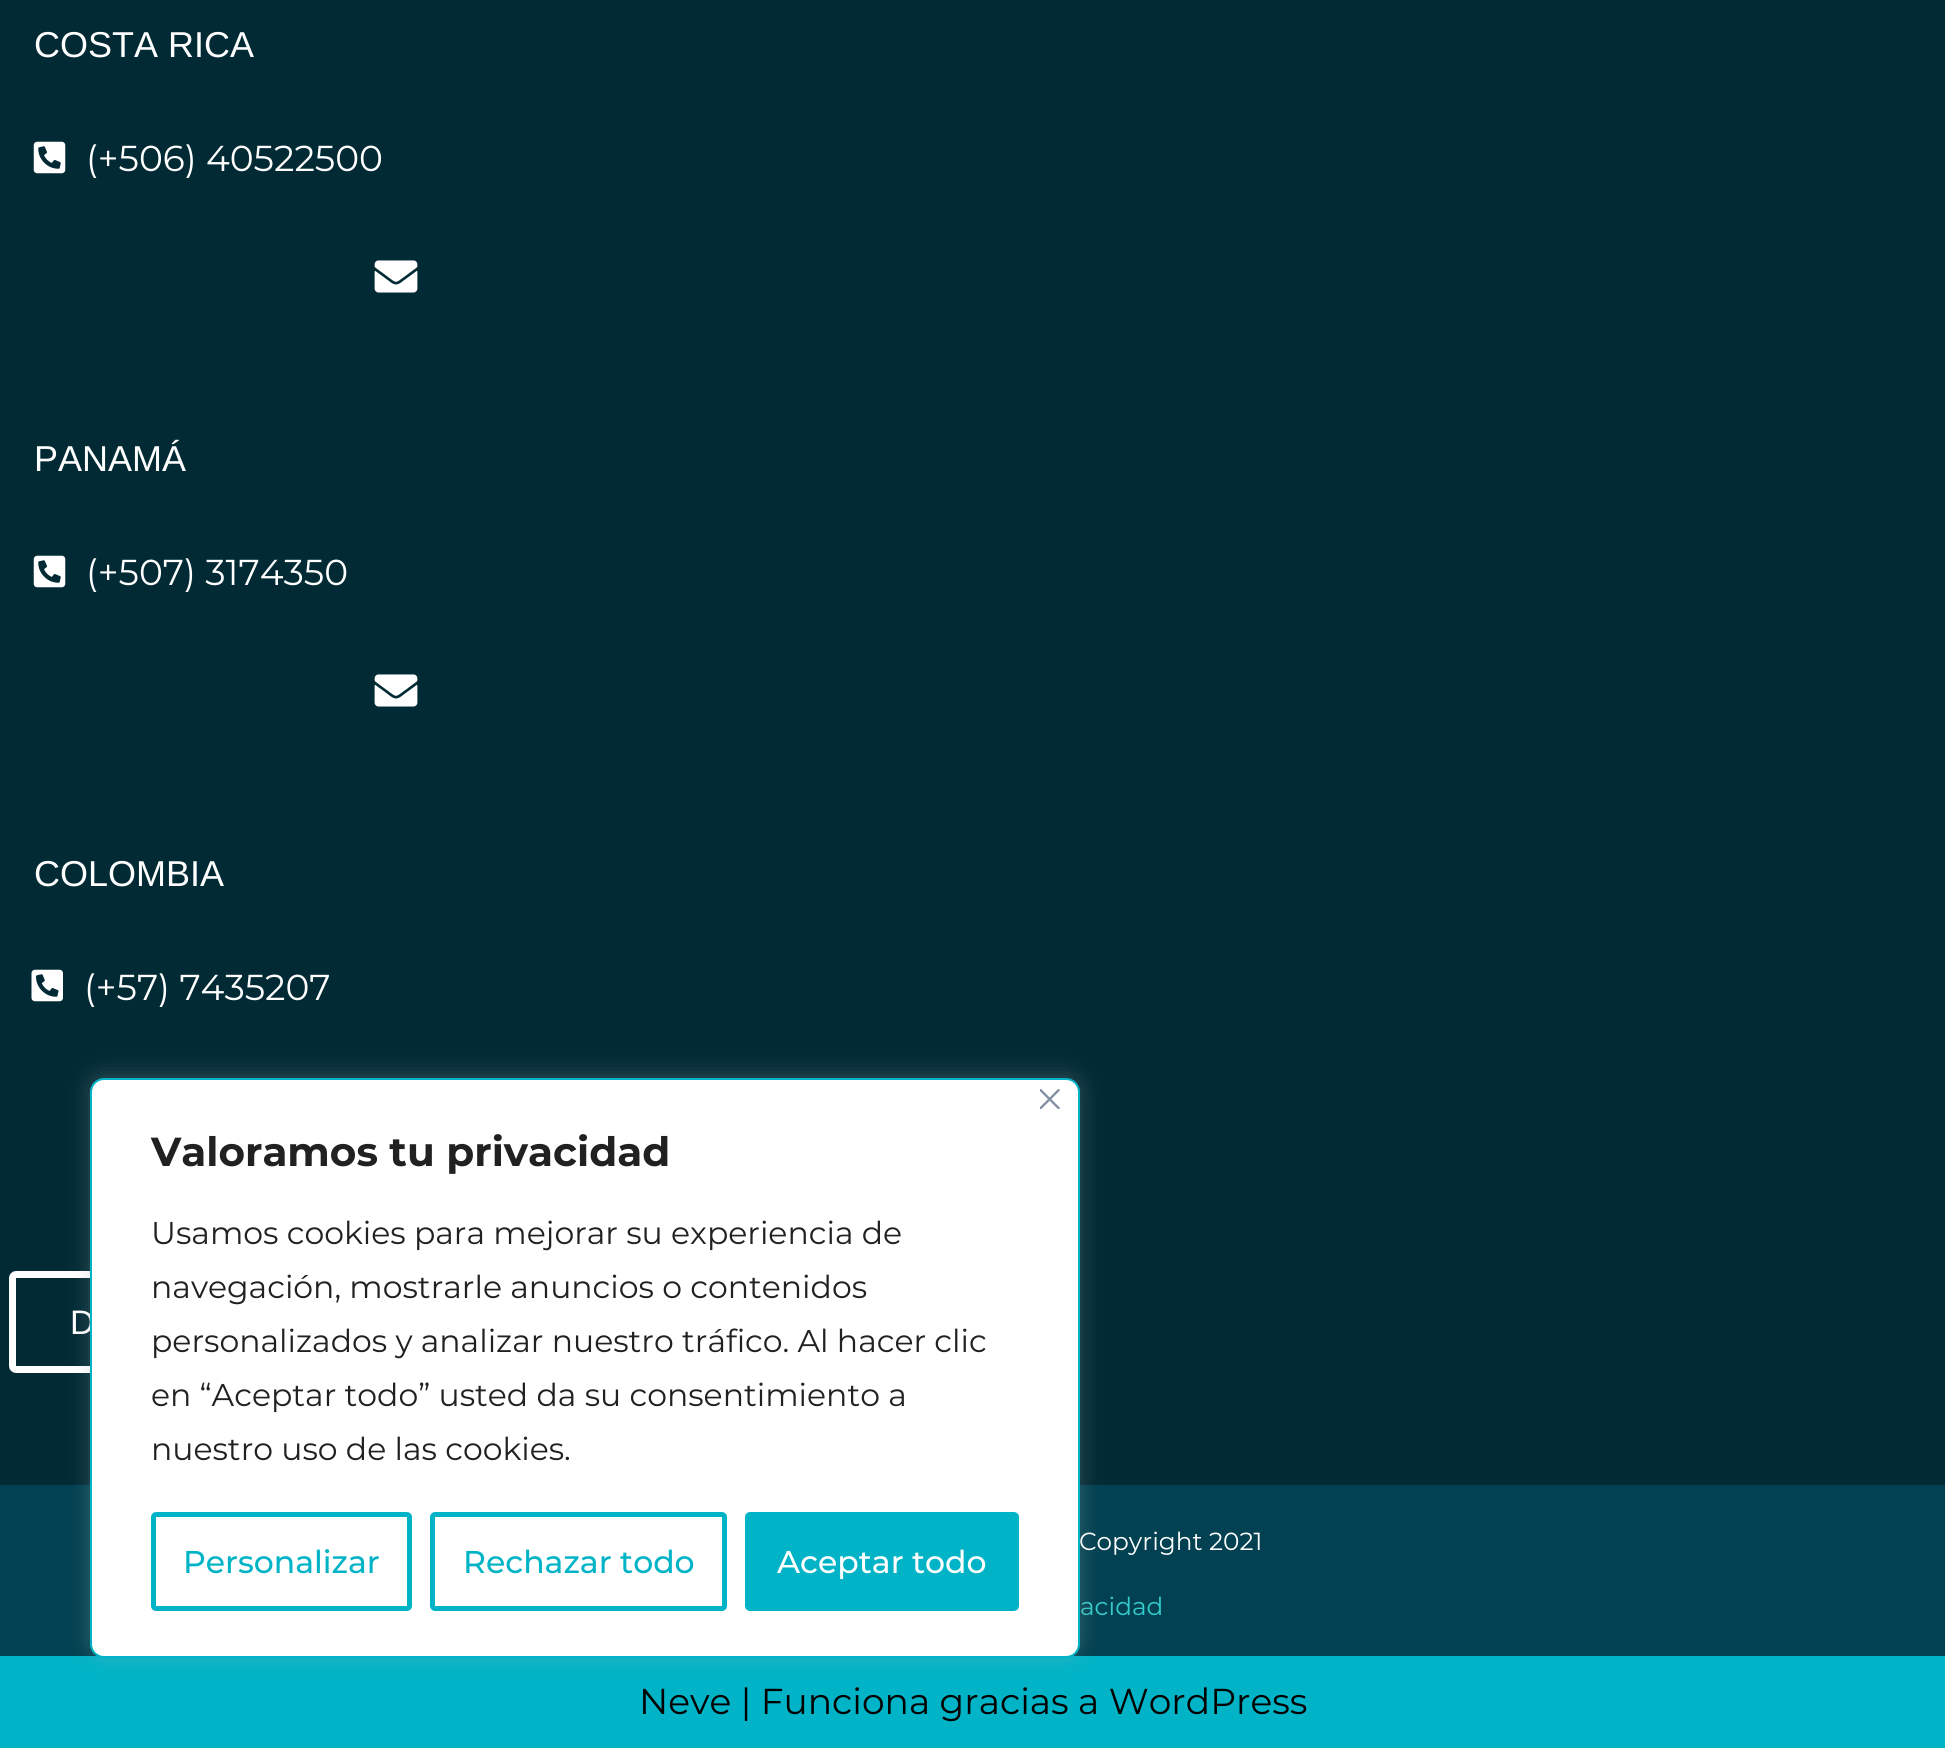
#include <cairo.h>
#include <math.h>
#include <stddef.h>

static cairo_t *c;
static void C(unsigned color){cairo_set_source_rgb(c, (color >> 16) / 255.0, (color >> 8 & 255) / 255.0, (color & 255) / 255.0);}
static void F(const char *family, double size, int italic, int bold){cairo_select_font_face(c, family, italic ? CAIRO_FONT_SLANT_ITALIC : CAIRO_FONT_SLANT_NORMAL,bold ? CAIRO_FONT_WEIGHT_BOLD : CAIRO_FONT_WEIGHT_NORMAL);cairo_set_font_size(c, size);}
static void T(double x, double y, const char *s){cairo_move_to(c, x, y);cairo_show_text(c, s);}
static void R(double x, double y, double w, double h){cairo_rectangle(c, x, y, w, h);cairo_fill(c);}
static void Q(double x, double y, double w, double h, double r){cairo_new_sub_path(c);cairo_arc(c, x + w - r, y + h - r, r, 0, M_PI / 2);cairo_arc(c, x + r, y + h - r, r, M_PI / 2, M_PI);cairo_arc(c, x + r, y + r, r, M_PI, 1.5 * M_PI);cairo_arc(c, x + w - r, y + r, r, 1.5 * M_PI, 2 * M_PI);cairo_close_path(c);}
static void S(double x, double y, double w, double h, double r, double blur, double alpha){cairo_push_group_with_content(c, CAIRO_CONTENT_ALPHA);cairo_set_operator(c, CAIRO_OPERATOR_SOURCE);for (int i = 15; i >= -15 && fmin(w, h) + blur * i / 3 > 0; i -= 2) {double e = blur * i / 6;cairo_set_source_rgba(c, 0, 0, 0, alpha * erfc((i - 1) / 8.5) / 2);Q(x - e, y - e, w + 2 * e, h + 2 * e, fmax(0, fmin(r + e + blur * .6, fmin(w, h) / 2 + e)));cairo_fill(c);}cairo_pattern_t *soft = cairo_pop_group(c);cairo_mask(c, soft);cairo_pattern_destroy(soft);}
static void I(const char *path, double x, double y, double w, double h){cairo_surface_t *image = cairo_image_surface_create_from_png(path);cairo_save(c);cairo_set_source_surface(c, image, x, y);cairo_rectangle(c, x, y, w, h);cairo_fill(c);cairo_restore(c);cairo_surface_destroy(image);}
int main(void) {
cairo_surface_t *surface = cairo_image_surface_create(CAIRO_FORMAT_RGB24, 1945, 1748);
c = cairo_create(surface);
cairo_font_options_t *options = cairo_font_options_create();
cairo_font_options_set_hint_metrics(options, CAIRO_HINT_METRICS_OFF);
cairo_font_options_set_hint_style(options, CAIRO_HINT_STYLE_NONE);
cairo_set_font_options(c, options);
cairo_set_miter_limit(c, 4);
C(0x012a35);
cairo_paint(c);
F("Liberation Sans",36,0,0);
C(0xffffff);
T(34,57,"COSTA RICA");
I("1.png",33,141,33,33);
F("Montserrat",36,0,0);
T(86,171,"(+506) 40522500");
I("2.png",374,260,44,33);
F("Liberation Sans",36,0,0);
T(34,471,"PANAMÁ");
I("1.png",33,555,33,33);
F("Montserrat",36,0,0);
T(86,585,"(+507) 3174350");
I("2.png",374,674,44,33);
F("Liberation Sans",36,0,0);
T(34,886,"COLOMBIA");
I("3.png",31,969,32,33);
F("Montserrat",36,0,0);
T(84,1000,"(+57) 7435207");
Q(12.5,1274.5,236,95,3.5);
cairo_set_line_width(c,7);
cairo_stroke(c);
F("Liberation Sans",34,0,0);
T(70,1334,"D");
C(0x014151);
R(0,1485,1945,171);
F("Montserrat",24.75,0,0);
C(0xffffff);
T(1079,1550,"Copyright 2021");
C(0x33cccc);
T(1080,1615,"acidad");
C(0x00b3c6);
R(0,1656,1945,92);
F("Montserrat",36,0,0);
C(0x000000);
T(639,1714,"Neve | Funciona gracias a WordPress");
C(0xacabab);
S(90,1076,990,580,14,11,.3);
C(0xffffff);
Q(91,1079,988,578,13);
cairo_fill_preserve(c);
C(0x00b3c6);
cairo_set_line_width(c,2);
cairo_stroke(c);
I("4.png",1040,1089,20,20);
F("Montserrat",40.5,0,1);
C(0x212121);
T(151,1166,"Valoramos tu privacidad");
F("Montserrat",31.5,0,0);
T(151,1244,"Usamos cookies para mejorar su experiencia de");
T(151,1298,"navegación, mostrarle anuncios o contenidos");
T(151,1352,"personalizados y analizar nuestro tráfico. Al hacer clic");
T(151,1406,"en “Aceptar todo” usted da su consentimiento a");
T(151,1460,"nuestro uso de las cookies.");
Q(153.5,1514.5,256,94,2.5);
C(0x00b3c6);
cairo_set_line_width(c,5);
cairo_stroke(c);
F("Montserrat Medium",31.5,0,0);
T(183,1573,"Personalizar");
Q(432.5,1514.5,292,94,2.5);
cairo_stroke(c);
T(463,1573,"Rechazar todo");
Q(747.5,1514.5,269,94,2.5);
cairo_fill_preserve(c);
cairo_stroke(c);
C(0xffffff);
T(777,1573,"Aceptar todo");
cairo_surface_write_to_png(surface, "o.png");
cairo_font_options_destroy(options);
cairo_destroy(c);
cairo_surface_destroy(surface);
return 0;
}
